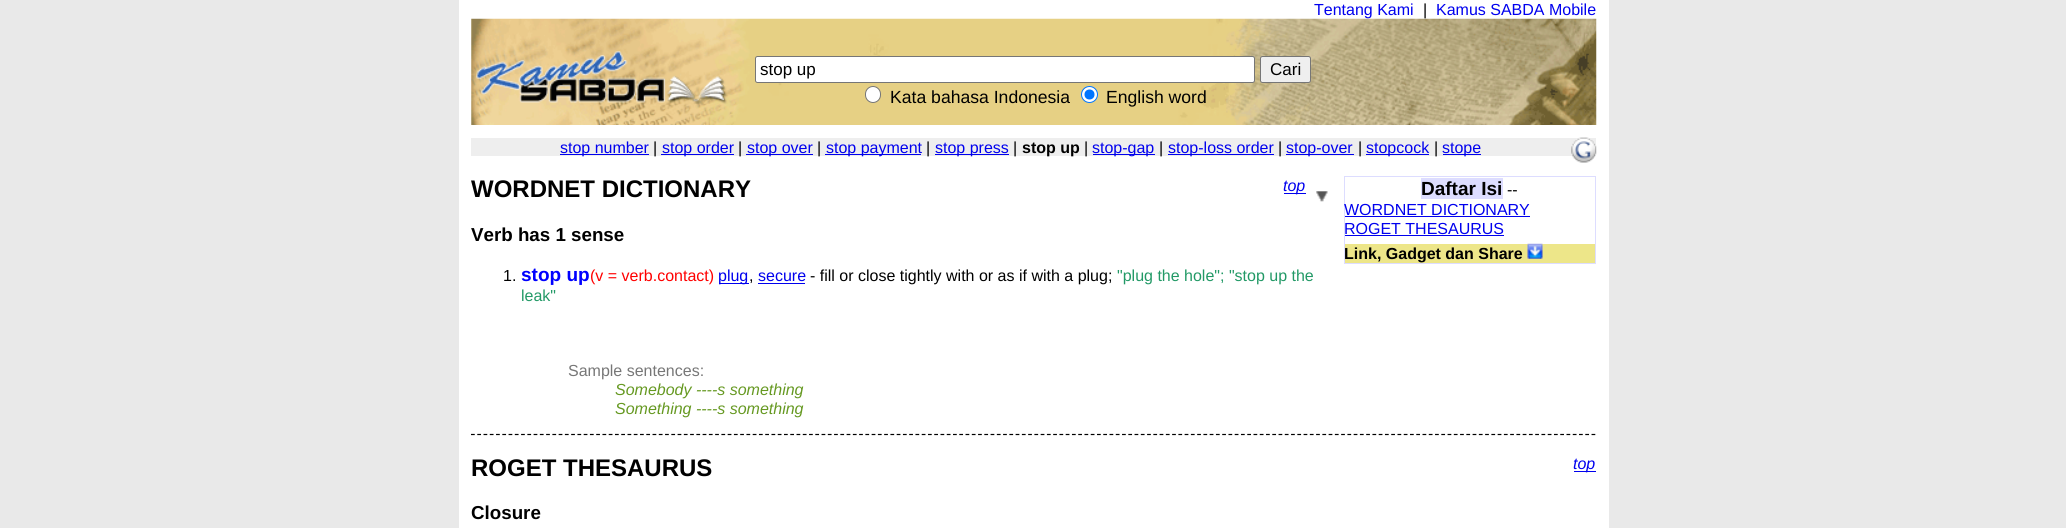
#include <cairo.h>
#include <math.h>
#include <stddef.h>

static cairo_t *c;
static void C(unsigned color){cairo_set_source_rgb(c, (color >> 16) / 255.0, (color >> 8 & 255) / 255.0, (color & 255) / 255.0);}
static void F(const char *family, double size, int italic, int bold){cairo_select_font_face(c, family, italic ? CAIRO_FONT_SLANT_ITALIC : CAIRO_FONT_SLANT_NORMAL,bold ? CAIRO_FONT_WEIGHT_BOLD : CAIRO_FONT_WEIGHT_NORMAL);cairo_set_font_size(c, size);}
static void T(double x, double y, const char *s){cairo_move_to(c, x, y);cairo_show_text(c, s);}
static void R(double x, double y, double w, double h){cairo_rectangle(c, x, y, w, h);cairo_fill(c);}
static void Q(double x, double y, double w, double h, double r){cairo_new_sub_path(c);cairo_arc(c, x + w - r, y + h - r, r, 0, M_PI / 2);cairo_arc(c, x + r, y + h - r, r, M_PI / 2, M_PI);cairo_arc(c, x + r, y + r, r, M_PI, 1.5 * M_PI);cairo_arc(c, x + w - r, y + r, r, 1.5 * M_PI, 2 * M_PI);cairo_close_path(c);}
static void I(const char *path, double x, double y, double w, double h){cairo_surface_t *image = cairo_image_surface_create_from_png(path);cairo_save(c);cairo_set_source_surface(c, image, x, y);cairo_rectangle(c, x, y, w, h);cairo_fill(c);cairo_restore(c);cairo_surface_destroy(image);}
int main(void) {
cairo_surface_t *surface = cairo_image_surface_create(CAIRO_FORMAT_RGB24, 2066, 528);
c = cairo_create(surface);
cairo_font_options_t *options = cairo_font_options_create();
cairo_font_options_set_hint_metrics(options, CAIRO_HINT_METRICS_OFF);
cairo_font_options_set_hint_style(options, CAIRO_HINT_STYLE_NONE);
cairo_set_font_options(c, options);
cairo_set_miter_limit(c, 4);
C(0xe9e9e9);
cairo_paint(c);
C(0xffffff);
R(459,0,1150,528);
I("1.png",471,18,1126,107);
F("Liberation Sans",16,0,0);
C(0x0000ee);
T(1314,15,"Tentang Kami");
C(0x000000);
T(1423,15,"|");
C(0x0000ee);
T(1436,15,"Kamus SABDA Mobile");
C(0xffffff);
Q(755.5,56.5,499,26,2);
cairo_fill_preserve(c);
C(0x767676);
cairo_set_line_width(c,1);
cairo_stroke(c);
F("Liberation Sans",17,0,0);
C(0x000000);
T(760,75,"stop up");
C(0xefefef);
Q(1260.5,56.5,50,26,2);
cairo_fill_preserve(c);
C(0x767676);
cairo_stroke(c);
C(0x000000);
T(1270,75,"Cari");
C(0xffffff);
Q(865.5,86.5,15,16,7.5);
cairo_fill_preserve(c);
C(0x767676);
cairo_stroke(c);
F("Liberation Sans",17.6,0,0);
C(0x000000);
T(890,103,"Kata bahasa Indonesia");
C(0xffffff);
cairo_new_path(c);
cairo_arc(c,1089.5,94.5,8,0,2 * M_PI);
cairo_fill_preserve(c);
C(0x0075ff);
cairo_stroke(c);
cairo_arc(c,1089.5,94.5,5,0,2 * M_PI);
cairo_fill(c);
C(0x000000);
T(1106,103,"English word");
C(0xeeeeee);
R(471,138,1125,18);
C(0x0000ee);
R(560,154,89,1);
F("Liberation Sans",16,0,0);
T(560,153,"stop number");
C(0x000000);
T(653,153,"|");
C(0x0000ee);
R(661,154,73,1);
T(662,153,"stop order");
C(0x000000);
T(738,153,"|");
C(0x0000ee);
R(746,154,67,1);
T(747,153,"stop over");
C(0x000000);
T(817,153,"|");
C(0x0000ee);
R(825,154,96,1);
T(826,153,"stop payment");
C(0x000000);
T(926,153,"|");
C(0x0000ee);
R(935,154,74,1);
T(935,153,"stop press");
C(0x000000);
T(1013,153,"|");
F("Liberation Sans",16,0,1);
T(1022,153,"stop up");
F("Liberation Sans",16,0,0);
T(1084,153,"|");
C(0x0000ee);
R(1093,154,62,1);
T(1092,153,"stop-gap");
C(0x000000);
T(1159,153,"|");
C(0x0000ee);
R(1168,154,106,1);
T(1168,153,"stop-loss order");
C(0x000000);
T(1278,153,"|");
C(0x0000ee);
R(1286,154,68,1);
T(1286,153,"stop-over");
C(0x000000);
T(1358,153,"|");
C(0x0000ee);
R(1366,154,63,1);
T(1366,153,"stopcock");
C(0x000000);
T(1434,153,"|");
C(0x0000ee);
R(1443,154,38,1);
T(1442,153,"stope");
I("2.png",1571,137,26,26);
cairo_new_path(c);
cairo_move_to(c,471,434.5);
cairo_line_to(c,1596,434.5);
C(0x000000);
cairo_set_line_width(c,1.2);
cairo_set_dash(c,(double[]){3.75,2.51},2,0);
cairo_stroke(c);
F("Liberation Sans",24,0,1);
T(471,197,"WORDNET DICTIONARY");
C(0x0000ee);
R(1284,193,22,1);
F("Liberation Sans",16,1,0);
T(1283,191,"top");
F("Liberation Sans",18.75,0,1);
C(0x000000);
T(471,241,"Verb has 1 sense");
F("Liberation Sans",16,0,0);
T(503,281,"1.");
F("Liberation Sans",19,0,1);
C(0x0000ff);
T(521,281,"stop up");
F("Liberation Sans",16,0,0);
C(0xff0000);
T(590,281,"(v = verb.contact)");
C(0x0000ee);
R(719,283,30,1);
T(718,281,"plug");
C(0x000000);
T(749,281,",");
C(0x0000ee);
T(758,281,"secure");
R(758,283,47,1);
C(0x000000);
T(810,281,"- fill or close tightly with or as if with a plug;");
C(0x229966);
T(1117,281,"\"plug the hole\"; \"stop up the");
T(521,301,"leak\"");
C(0x777777);
T(568,376,"Sample sentences:");
F("Liberation Sans",16,1,0);
C(0x669922);
T(615,395,"Somebody ----s something");
T(615,414,"Something ----s something");
F("Liberation Sans",24,0,1);
C(0x000000);
T(471,476,"ROGET THESAURUS");
C(0x0000ee);
R(1574,471,22,1);
F("Liberation Sans",16,1,0);
T(1573,469,"top");
F("Liberation Sans",18.75,0,1);
C(0x000000);
T(471,519,"Closure");
I("3.png",1316,191,12,11);
cairo_rectangle(c,1344.5,176.5,251,87);
C(0xddddff);
cairo_set_line_width(c,1);
cairo_set_dash(c,NULL,0,0);
cairo_stroke(c);
R(1421,178,82,21);
F("Liberation Sans",19,0,1);
C(0x000000);
T(1421,195,"Daftar Isi");
F("Liberation Sans",16,0,0);
T(1507,195,"--");
C(0x0000ee);
T(1344,215,"WORDNET DICTIONARY");
R(1345,216,185,1);
T(1344,234,"ROGET THESAURUS");
R(1345,235,159,1);
C(0xede689);
R(1345,244,250,19);
F("Liberation Sans",16,0,1);
C(0x000000);
T(1344,259,"Link, Gadget dan Share");
I("4.png",1527,243,16,16);
cairo_surface_write_to_png(surface, "o.png");
cairo_font_options_destroy(options);
cairo_destroy(c);
cairo_surface_destroy(surface);
return 0;
}
